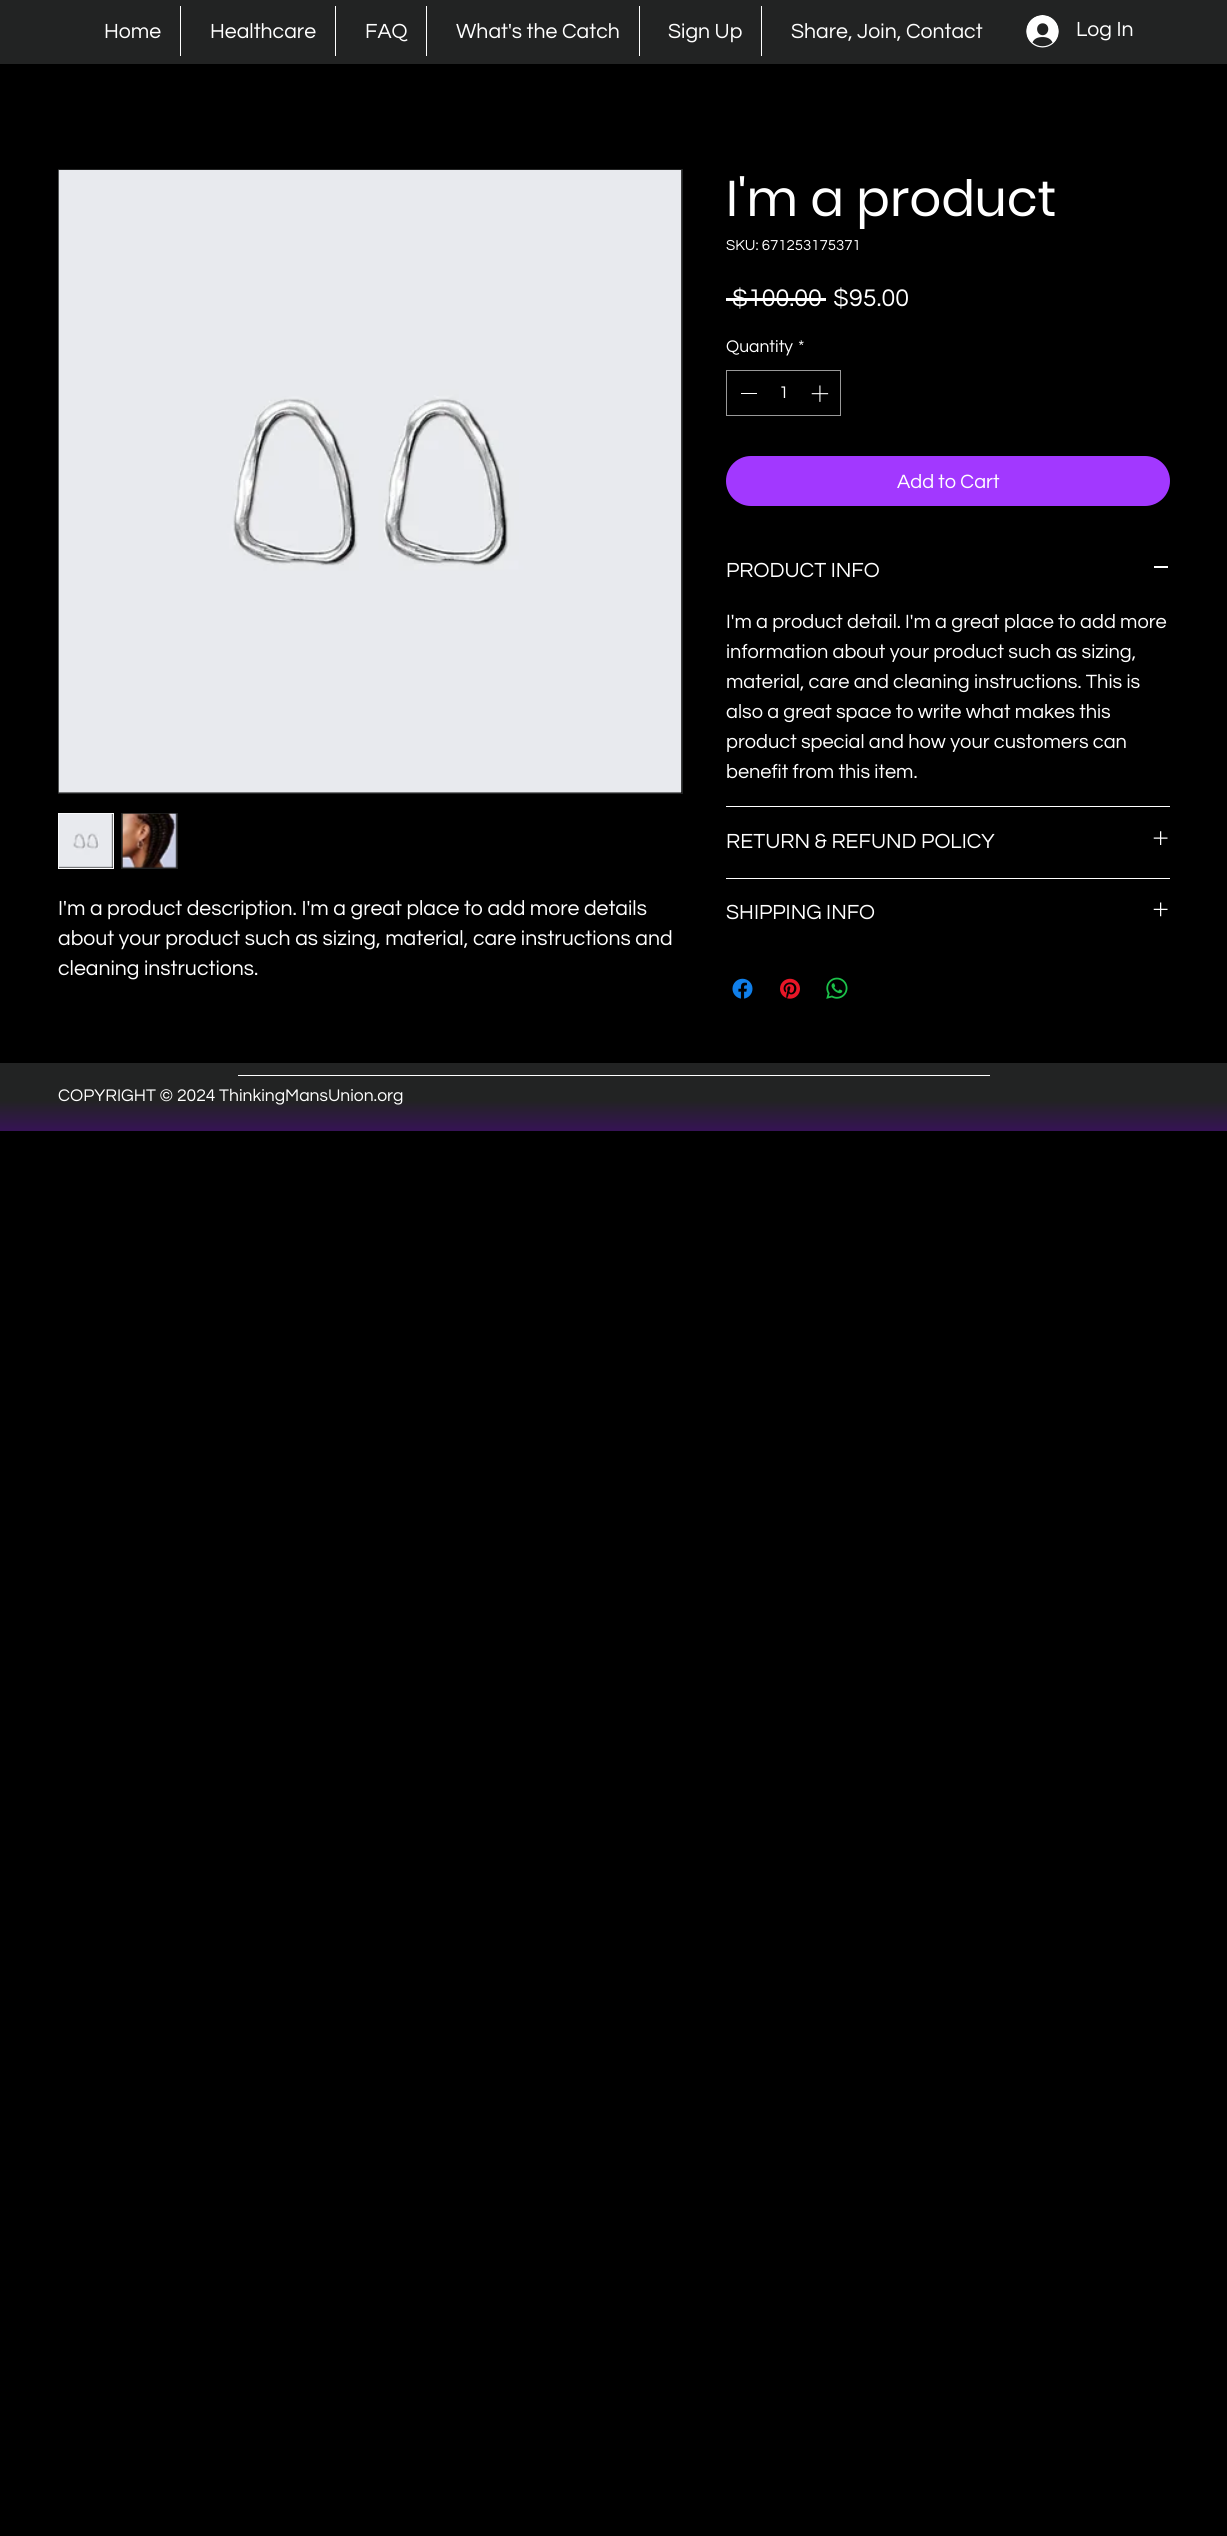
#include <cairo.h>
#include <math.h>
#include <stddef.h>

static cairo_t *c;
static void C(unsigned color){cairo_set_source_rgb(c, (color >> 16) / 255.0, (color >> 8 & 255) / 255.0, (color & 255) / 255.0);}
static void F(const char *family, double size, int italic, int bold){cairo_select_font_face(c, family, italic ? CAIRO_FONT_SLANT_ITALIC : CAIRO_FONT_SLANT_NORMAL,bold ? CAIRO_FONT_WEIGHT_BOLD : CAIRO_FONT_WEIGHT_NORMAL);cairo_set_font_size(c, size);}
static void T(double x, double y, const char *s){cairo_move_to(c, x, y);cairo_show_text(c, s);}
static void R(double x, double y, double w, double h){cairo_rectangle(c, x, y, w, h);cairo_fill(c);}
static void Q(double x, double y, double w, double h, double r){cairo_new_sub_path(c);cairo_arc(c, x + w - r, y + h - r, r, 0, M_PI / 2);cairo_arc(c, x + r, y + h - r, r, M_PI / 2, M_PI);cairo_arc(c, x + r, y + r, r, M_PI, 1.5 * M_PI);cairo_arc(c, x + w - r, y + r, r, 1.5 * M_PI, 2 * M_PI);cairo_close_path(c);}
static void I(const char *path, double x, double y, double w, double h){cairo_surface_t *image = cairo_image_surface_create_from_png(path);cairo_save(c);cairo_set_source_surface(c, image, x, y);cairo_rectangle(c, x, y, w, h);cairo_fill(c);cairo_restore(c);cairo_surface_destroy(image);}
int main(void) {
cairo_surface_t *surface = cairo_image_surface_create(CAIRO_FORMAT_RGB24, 1227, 2536);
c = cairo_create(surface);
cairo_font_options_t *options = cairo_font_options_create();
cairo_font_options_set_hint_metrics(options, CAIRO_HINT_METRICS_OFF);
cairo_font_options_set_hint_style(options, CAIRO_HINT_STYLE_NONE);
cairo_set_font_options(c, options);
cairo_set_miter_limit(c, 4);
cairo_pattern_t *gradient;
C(0x000000);
cairo_paint(c);
C(0x222323);
R(0,0,1227,64);
F("Questrial",21.25,0,0);
C(0xffffff);
T(104,38,"Home");
R(180,6,1,50);
T(210,38,"Healthcare");
R(335,6,1,50);
T(365,38,"FAQ");
R(426,6,1,50);
T(456,38,"What's the Catch");
R(639,6,1,50);
T(668,38,"Sign Up");
R(761,6,1,50);
T(791,38,"Share, Join, Contact");
I("1.png",1026,15,33,33);
T(1076,36,"Log In");
F("Poppins",50,0,0);
T(726,216,"I'm a product");
F("Questrial",15,0,0);
T(726,250,"SKU: 671253175371");
F("Questrial",25,0,0);
T(732,306,"$100.00");
R(726,298,100,3);
T(833,306,"$95.00");
F("Questrial",17.5,0,0);
T(726,352,"Quantity");
T(798,352,"*");
cairo_rectangle(c,726.5,370.5,114,45);
C(0x999999);
cairo_set_line_width(c,1);
cairo_stroke(c);
C(0xffffff);
R(741,393,16,1);
T(779,398,"1");
I("2.png",811,385,18,17);
C(0xa238ff);
Q(726,456,444,50,25);
cairo_fill(c);
F("Questrial",20,0,0);
C(0xffffff);
T(897,488,"Add to Cart");
R(726,806,444,1);
F("Questrial",21.25,0,0);
T(726,577,"PRODUCT INFO");
R(1154,566,14,2);
F("Questrial",20,0,0);
T(726,628,"I'm a product detail. I'm a great place to add more");
T(726,658,"information about your product such as sizing,");
T(726,688,"material, care and cleaning instructions. This is");
T(726,718,"also a great space to write what makes this");
T(726,748,"product special and how your customers can");
T(726,778,"benefit from this item.");
R(726,878,444,1);
F("Questrial",21.25,0,0);
T(726,848,"RETURN & REFUND POLICY");
I("3.png",1153,831,15,14);
T(726,919,"SHIPPING INFO");
I("4.png",1153,902,15,15);
I("5.png",732,978,21,21);
I("6.png",780,978,20,21);
I("7.png",826,977,22,22);
cairo_rectangle(c,58.5,169.5,624,624);
C(0x222323);
cairo_stroke(c);
I("8.png",58,170,624,623);
cairo_rectangle(c,58.5,813.5,55,55);
cairo_fill_preserve(c);
C(0xffffff);
cairo_stroke(c);
I("9.png",58,813,55,55);
C(0x222323);
R(121,813,57,56);
I("10.png",122,813,55,55);
C(0xffffff);
T(58,915,"I'm a product description. I'm a great place to add more details");
T(58,945,"about your product such as sizing, material, care instructions and");
T(58,975,"cleaning instructions.");
gradient = cairo_pattern_create_linear(614,1131,614,1063);
cairo_pattern_add_color_stop_rgba(gradient,0,0.212,0.075,0.333,1);
cairo_pattern_add_color_stop_rgba(gradient,.45,0.133,0.137,0.137,1);
cairo_pattern_add_color_stop_rgba(gradient,.96,0.133,0.137,0.137,1);
cairo_set_source(c,gradient);
cairo_pattern_destroy(gradient);
R(0,1063,1227,68);
C(0xffffff);
R(238,1075,752,1);
F("Questrial",17.5,0,0);
T(58,1101,"COPYRIGHT © 2024 ThinkingMansUnion.org");
cairo_surface_write_to_png(surface, "o.png");
cairo_font_options_destroy(options);
cairo_destroy(c);
cairo_surface_destroy(surface);
return 0;
}
